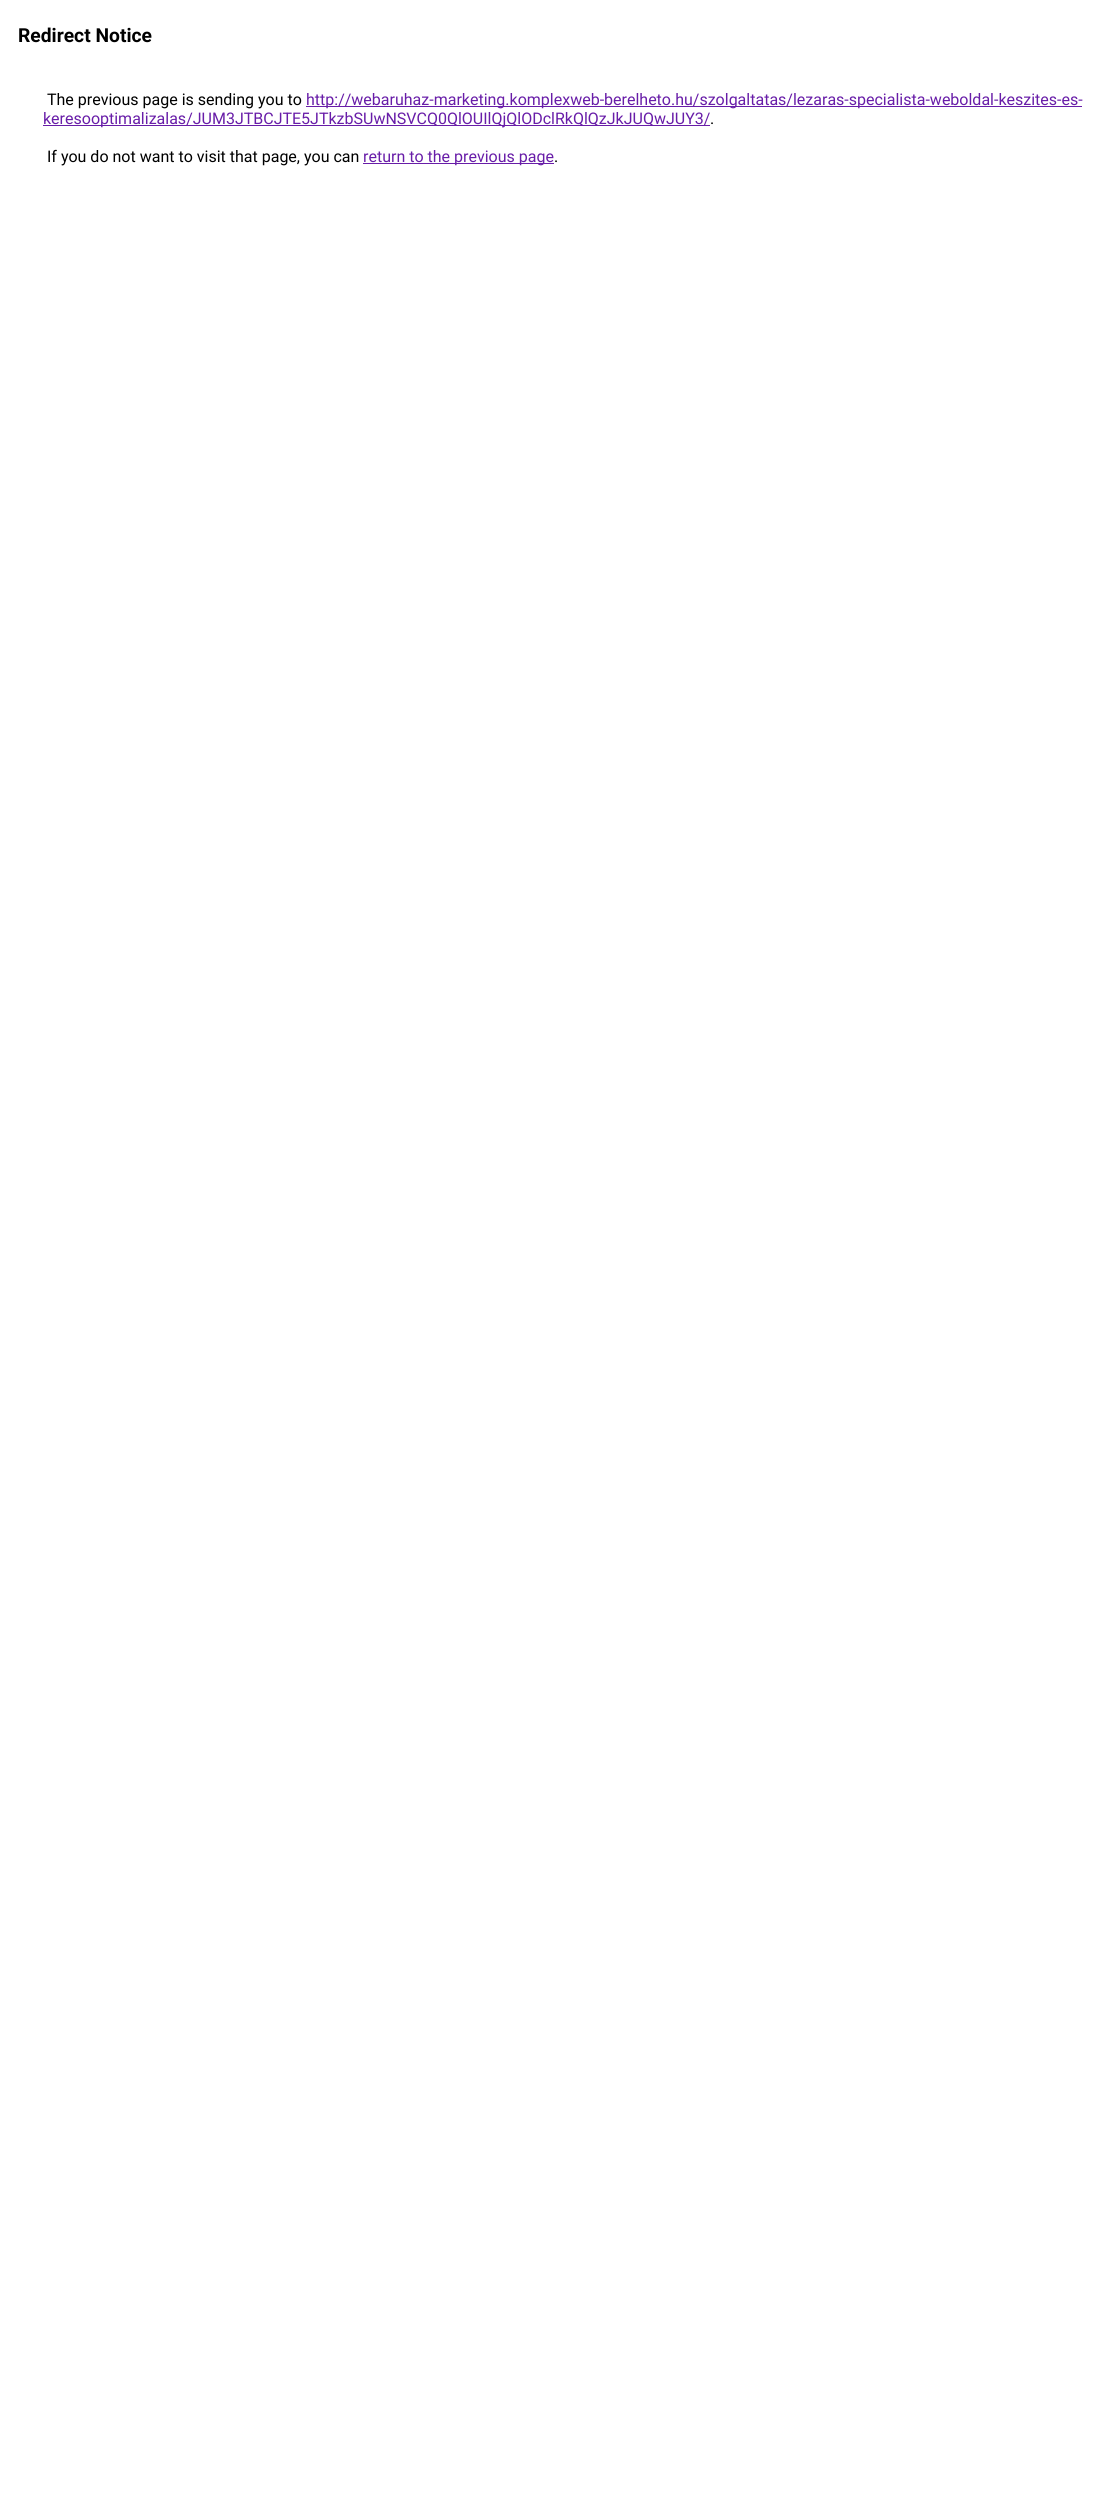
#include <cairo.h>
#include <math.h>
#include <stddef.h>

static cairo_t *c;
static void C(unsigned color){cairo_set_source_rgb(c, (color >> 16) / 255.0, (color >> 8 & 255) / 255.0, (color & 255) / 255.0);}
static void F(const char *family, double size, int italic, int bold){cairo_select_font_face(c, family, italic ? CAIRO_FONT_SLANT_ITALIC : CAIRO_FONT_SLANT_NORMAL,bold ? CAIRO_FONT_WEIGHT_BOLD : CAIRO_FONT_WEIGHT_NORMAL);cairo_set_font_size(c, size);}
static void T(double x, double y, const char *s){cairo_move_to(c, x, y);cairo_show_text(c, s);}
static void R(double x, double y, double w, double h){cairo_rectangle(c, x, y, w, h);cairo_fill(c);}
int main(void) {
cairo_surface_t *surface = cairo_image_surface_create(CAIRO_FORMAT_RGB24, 1107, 2511);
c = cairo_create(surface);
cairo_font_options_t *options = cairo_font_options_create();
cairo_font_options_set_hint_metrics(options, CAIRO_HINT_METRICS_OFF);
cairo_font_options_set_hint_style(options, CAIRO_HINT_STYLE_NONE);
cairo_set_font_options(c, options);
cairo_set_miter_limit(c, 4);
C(0xffffff);
cairo_paint(c);
F("Roboto",19.25,0,1);
C(0x000000);
T(18,42,"Redirect Notice");
F("Roboto",16,0,0);
T(47,105,"The previous page is sending you to");
C(0x681da8);
R(306,106,776,1);
T(306,105,"http://webaruhaz-marketing.komplexweb-berelheto.hu/szolgaltatas/lezaras-specialista-weboldal-keszites-es-");
R(43,125,667,1);
T(43,124,"keresooptimalizalas/JUM3JTBCJTE5JTkzbSUwNSVCQ0QlOUIlQjQlODclRkQlQzJkJUQwJUY3/");
C(0x000000);
T(710,124,".");
T(47,162,"If you do not want to visit that page, you can");
C(0x681da8);
R(363,163,191,1);
T(363,162,"return to the previous page");
C(0x000000);
T(554,162,".");
cairo_surface_write_to_png(surface, "o.png");
cairo_font_options_destroy(options);
cairo_destroy(c);
cairo_surface_destroy(surface);
return 0;
}
